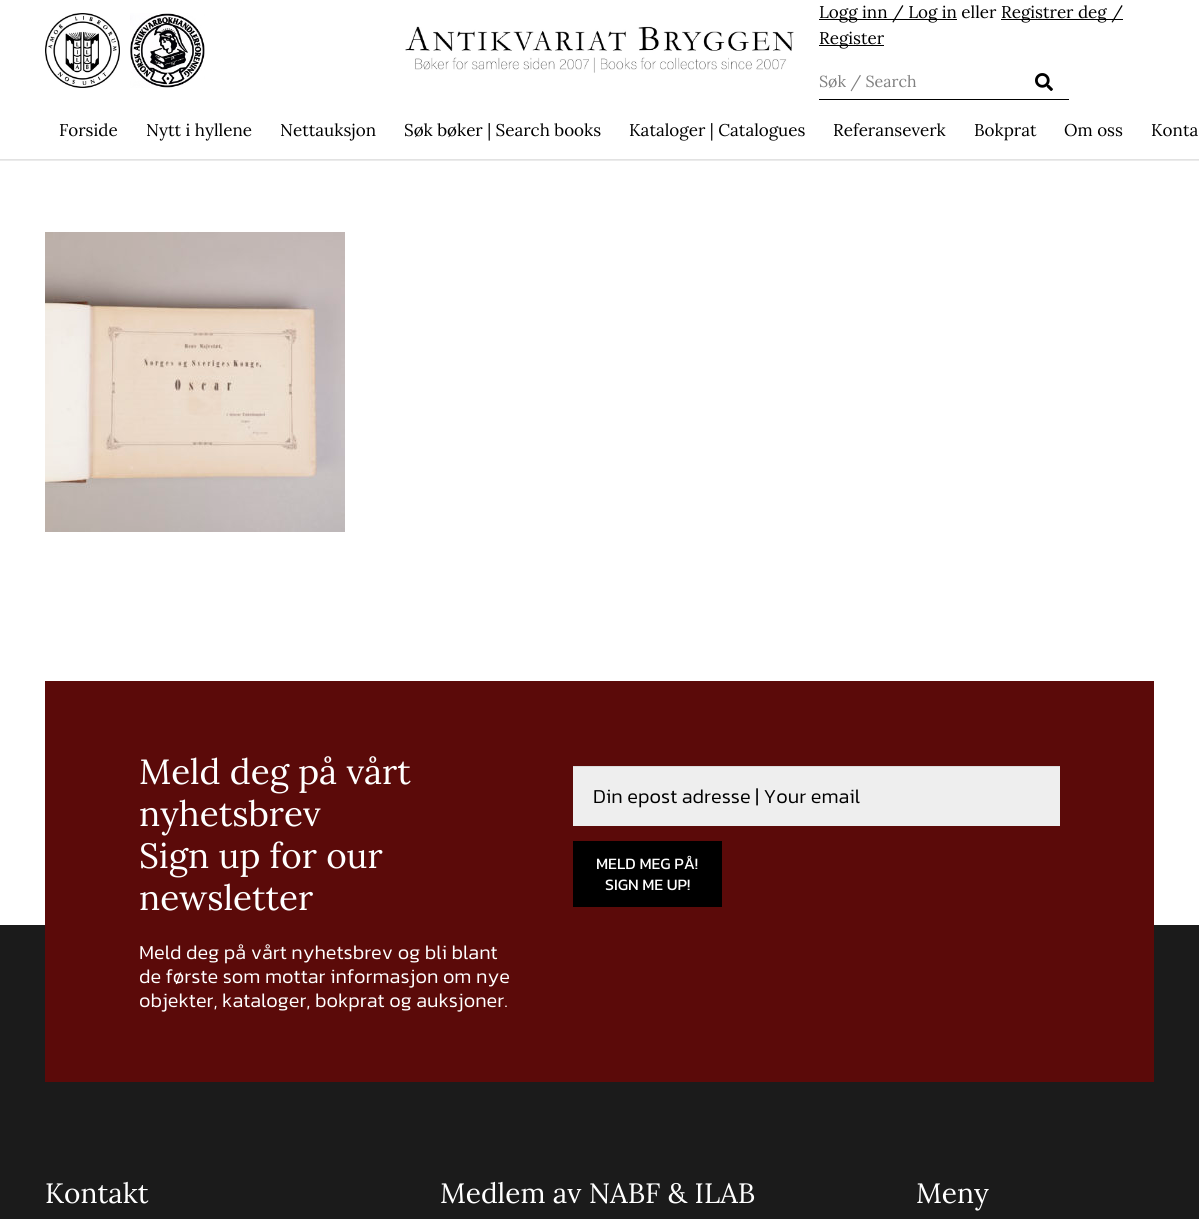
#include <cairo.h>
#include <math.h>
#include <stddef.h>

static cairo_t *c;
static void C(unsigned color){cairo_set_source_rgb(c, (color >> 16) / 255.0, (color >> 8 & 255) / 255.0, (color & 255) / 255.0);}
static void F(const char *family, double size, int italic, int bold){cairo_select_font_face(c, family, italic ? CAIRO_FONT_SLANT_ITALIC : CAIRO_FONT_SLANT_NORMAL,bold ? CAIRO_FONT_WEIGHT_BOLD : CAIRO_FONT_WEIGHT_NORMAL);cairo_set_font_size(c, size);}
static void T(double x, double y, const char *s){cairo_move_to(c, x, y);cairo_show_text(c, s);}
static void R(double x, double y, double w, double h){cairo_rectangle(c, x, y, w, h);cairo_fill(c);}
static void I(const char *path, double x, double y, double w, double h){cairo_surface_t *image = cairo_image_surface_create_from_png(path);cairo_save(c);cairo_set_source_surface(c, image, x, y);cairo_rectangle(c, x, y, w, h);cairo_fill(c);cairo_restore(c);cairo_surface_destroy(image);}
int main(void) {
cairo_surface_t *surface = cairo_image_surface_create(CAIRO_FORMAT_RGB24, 1199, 1219);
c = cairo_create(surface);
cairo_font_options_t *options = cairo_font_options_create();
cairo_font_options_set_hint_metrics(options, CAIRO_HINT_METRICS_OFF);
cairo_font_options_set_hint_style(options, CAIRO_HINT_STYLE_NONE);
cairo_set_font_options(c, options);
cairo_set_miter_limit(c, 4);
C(0xffffff);
cairo_paint(c);
I("1.png",45,13,75,75);
I("2.png",130,13,75,75);
I("3.png",405,26,389,47);
C(0x000000);
R(819,19,138,1);
F("Lora",17,0,0);
T(819,18,"Logg inn / Log in eller");
R(1001,19,122,1);
T(1001,18,"Registrer deg /");
R(819,45,65,1);
T(819,44,"Register");
R(819,99,250,1);
F("Lora",16,0,0);
C(0x808080);
T(819,87,"Søk / Search");
I("4.png",1035,73,18,18);
C(0xebebeb);
R(0,160,1199,1);
C(0xe2e2e2);
R(0,159,1199,1);
F("Lora",17,0,0);
C(0x000000);
T(59,136,"Forside");
T(146,136,"Nytt i hyllene");
T(280,136,"Nettauksjon");
T(404,136,"Søk bøker | Search books");
T(629,136,"Kataloger | Catalogues");
T(833,136,"Referanseverk");
T(974,136,"Bokprat");
T(1064,136,"Om oss");
T(1151,136,"Konta");
I("5.png",45,232,300,300);
C(0x1b1b1b);
R(0,925,1199,294);
C(0x5b0a09);
R(45,681,1109,401);
F("Lora",35,0,0);
C(0xffffff);
T(139,784,"Meld deg på vårt");
T(139,826,"nyhetsbrev");
T(139,868,"Sign up for our");
T(139,910,"newsletter");
F("Kanit Light",20,0,0);
T(139,959,"Meld deg på vårt nyhetsbrev og bli blant");
T(139,983,"de første som mottar informasjon om nye");
T(139,1007,"objekter, kataloger, bokprat og auksjoner.");
C(0xeeeeee);
R(573,767,487,59);
C(0xdbdbdb);
R(573,766,487,1);
C(0x000000);
T(593,803,"Din epost adresse | Your email");
R(573,841,149,66);
F("Kanit",16,0,0);
C(0xffffff);
T(596,869,"MELD MEG PÅ!");
T(605,890,"SIGN ME UP!");
F("Lora",28,0,0);
T(45,1203,"Kontakt");
T(440,1203,"Medlem av NABF & ILAB");
T(916,1203,"Meny");
cairo_surface_write_to_png(surface, "o.png");
cairo_font_options_destroy(options);
cairo_destroy(c);
cairo_surface_destroy(surface);
return 0;
}
